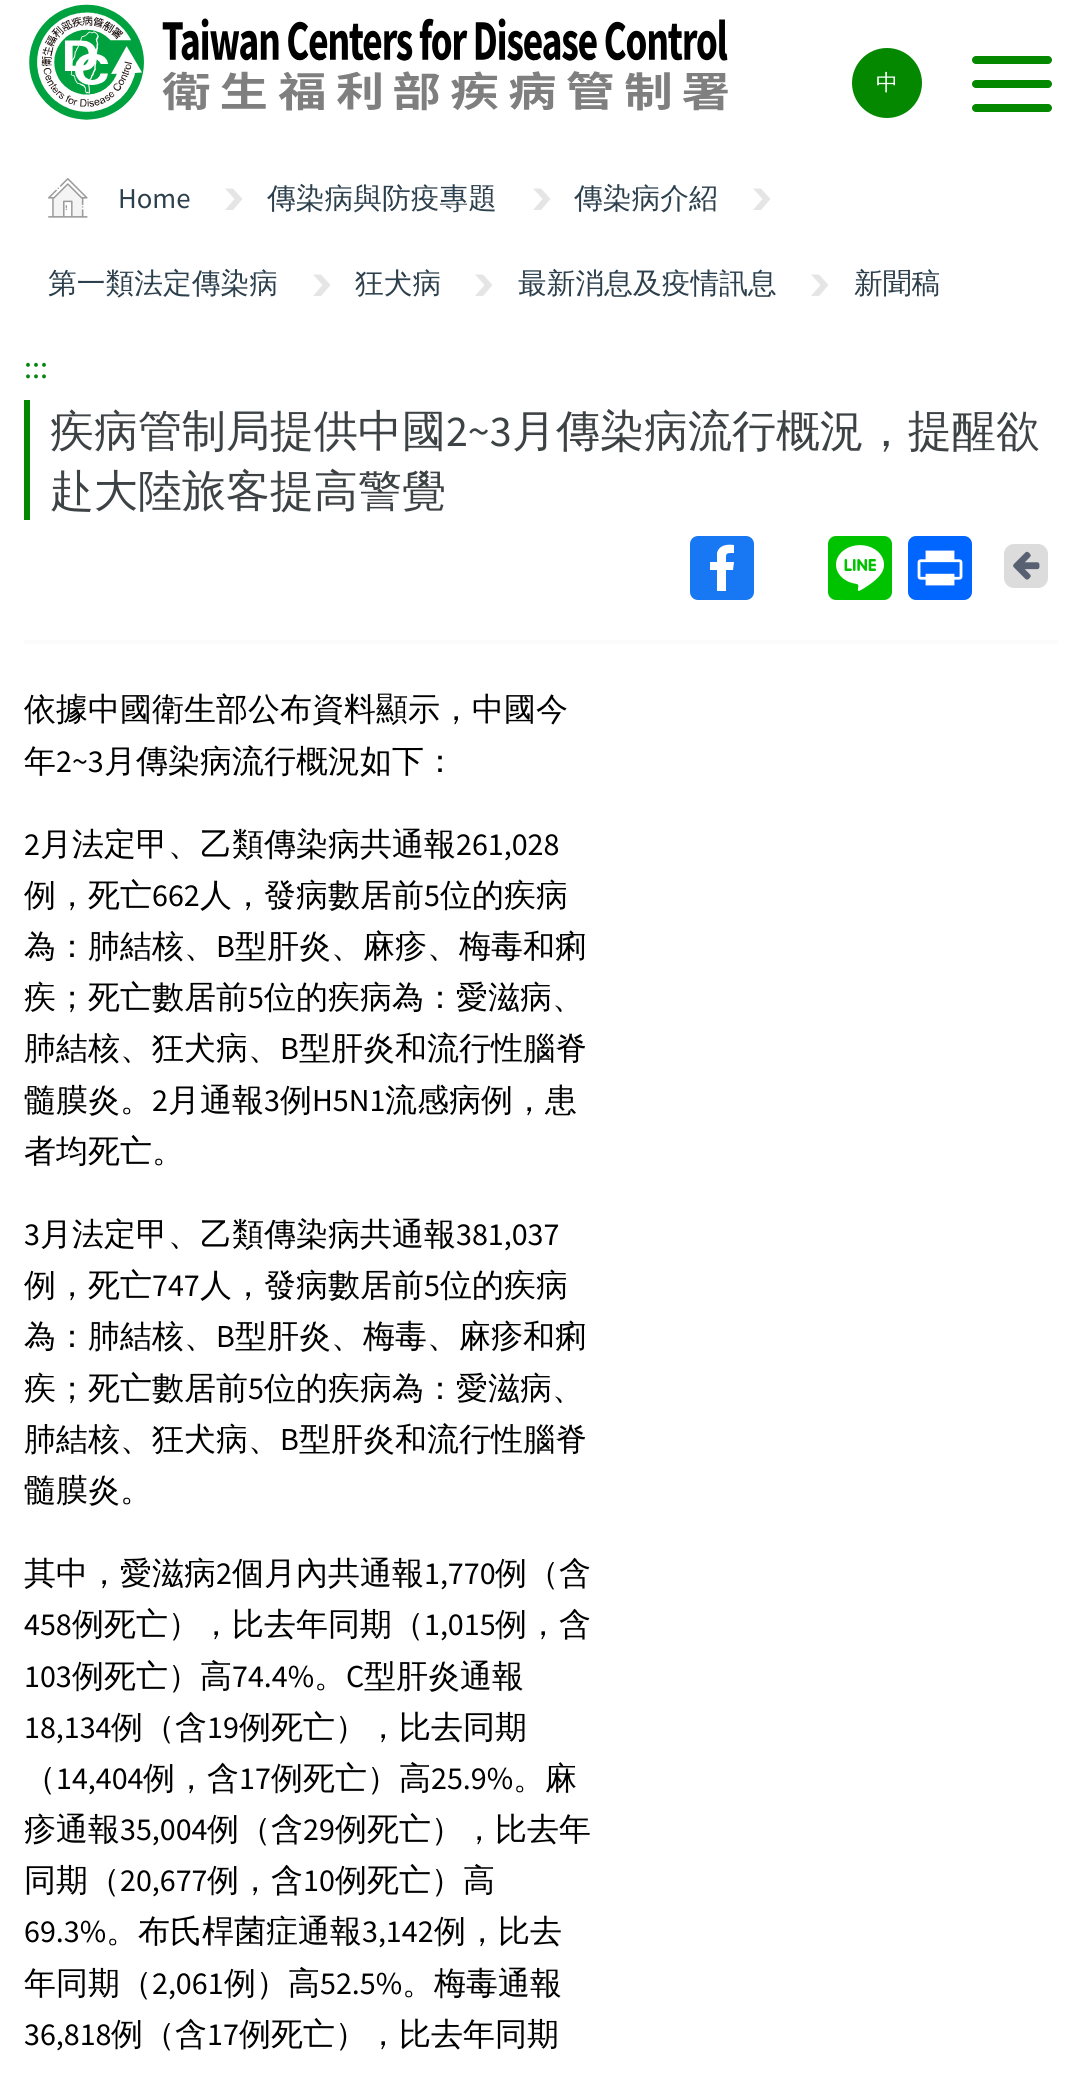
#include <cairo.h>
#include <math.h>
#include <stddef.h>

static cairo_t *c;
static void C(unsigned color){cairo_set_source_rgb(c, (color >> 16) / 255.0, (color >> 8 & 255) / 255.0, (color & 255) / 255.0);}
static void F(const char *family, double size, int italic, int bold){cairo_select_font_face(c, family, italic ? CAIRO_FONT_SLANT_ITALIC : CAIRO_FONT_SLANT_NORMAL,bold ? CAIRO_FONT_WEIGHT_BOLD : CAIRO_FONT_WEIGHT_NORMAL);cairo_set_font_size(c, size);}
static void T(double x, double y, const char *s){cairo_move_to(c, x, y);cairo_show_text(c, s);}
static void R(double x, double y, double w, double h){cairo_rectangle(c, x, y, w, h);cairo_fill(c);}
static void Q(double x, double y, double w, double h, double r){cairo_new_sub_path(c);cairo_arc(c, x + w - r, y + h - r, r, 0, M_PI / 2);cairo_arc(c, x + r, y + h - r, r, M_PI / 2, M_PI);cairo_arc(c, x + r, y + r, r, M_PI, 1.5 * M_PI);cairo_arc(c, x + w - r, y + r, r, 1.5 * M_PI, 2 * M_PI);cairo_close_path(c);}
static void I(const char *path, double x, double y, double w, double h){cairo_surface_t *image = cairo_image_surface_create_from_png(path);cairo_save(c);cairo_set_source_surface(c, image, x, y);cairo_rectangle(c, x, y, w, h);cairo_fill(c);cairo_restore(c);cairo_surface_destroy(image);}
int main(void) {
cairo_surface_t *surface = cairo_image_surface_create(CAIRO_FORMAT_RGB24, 1081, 2080);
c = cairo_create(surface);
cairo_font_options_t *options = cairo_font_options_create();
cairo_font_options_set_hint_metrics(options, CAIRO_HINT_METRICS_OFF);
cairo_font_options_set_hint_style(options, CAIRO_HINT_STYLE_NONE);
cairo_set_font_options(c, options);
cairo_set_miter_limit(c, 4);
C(0xffffff);
cairo_paint(c);
I("1.png",29,4,699,116);
C(0x048800);
cairo_arc(c,887,83,35,0,2 * M_PI);
cairo_fill(c);
F("WenQuanYi Zen Hei Medium",22,0,0);
C(0xffffff);
T(876,90,"中");
C(0x048800);
Q(972,56,80,8,4);
cairo_fill(c);
Q(972,80,80,8,4);
cairo_fill(c);
Q(972,104,80,8,4);
cairo_fill(c);
I("2.png",48,178,40,40);
F("Source Sans Pro",28.75,0,0);
C(0x2c3f4c);
T(118,208,"Home");
C(0xe5e5e5);
cairo_new_path(c);
cairo_move_to(c,233,188.5);
cairo_line_to(c,225,188.5);
cairo_line_to(c,234.5,199);
cairo_line_to(c,225,210);
cairo_line_to(c,233,210);
cairo_line_to(c,242.5,199);
cairo_close_path(c);
cairo_fill(c);
F("WenQuanYi Zen Hei Medium",28.75,0,0);
C(0x2c3f4c);
T(267,208,"傳染病與防疫專題");
C(0xe5e5e5);
cairo_new_path(c);
cairo_move_to(c,541,188.5);
cairo_line_to(c,533,188.5);
cairo_line_to(c,542.5,199);
cairo_line_to(c,533,210);
cairo_line_to(c,541,210);
cairo_line_to(c,550.5,199);
cairo_close_path(c);
cairo_fill(c);
C(0x2c3f4c);
T(574,208,"傳染病介紹");
C(0xe5e5e5);
cairo_new_path(c);
cairo_move_to(c,761,188.5);
cairo_line_to(c,753,188.5);
cairo_line_to(c,762.5,199);
cairo_line_to(c,753,210);
cairo_line_to(c,761,210);
cairo_line_to(c,770.5,199);
cairo_close_path(c);
cairo_fill(c);
C(0x2c3f4c);
T(48,293,"第一類法定傳染病");
C(0xe5e5e5);
cairo_new_path(c);
cairo_move_to(c,321,274.5);
cairo_line_to(c,313,274.5);
cairo_line_to(c,322.5,285);
cairo_line_to(c,313,296);
cairo_line_to(c,321,296);
cairo_line_to(c,330.5,285);
cairo_close_path(c);
cairo_fill(c);
C(0x2c3f4c);
T(355,293,"狂犬病");
C(0xe5e5e5);
cairo_new_path(c);
cairo_move_to(c,483,274.5);
cairo_line_to(c,475,274.5);
cairo_line_to(c,484.5,285);
cairo_line_to(c,475,296);
cairo_line_to(c,483,296);
cairo_line_to(c,492.5,285);
cairo_close_path(c);
cairo_fill(c);
C(0x2c3f4c);
T(518,293,"最新消息及疫情訊息");
C(0xe5e5e5);
cairo_new_path(c);
cairo_move_to(c,819,274.5);
cairo_line_to(c,811,274.5);
cairo_line_to(c,820.5,285);
cairo_line_to(c,811,296);
cairo_line_to(c,819,296);
cairo_line_to(c,828.5,285);
cairo_close_path(c);
cairo_fill(c);
C(0x2c3f4c);
T(854,293,"新聞稿");
F("Source Sans Pro",32,0,0);
C(0x068511);
T(24,378,":::");
C(0x048800);
R(24,400,6,120);
F("WenQuanYi Zen Hei Medium",44,0,0);
C(0x3d4245);
T(50,446,"疾病管制局提供中國");
F("Source Sans Pro",44,0,0);
T(446,446,"2~3");
F("WenQuanYi Zen Hei Medium",44,0,0);
T(512,446,"月傳染病流行概況，提醒欲");
T(50,506,"赴大陸旅客提高警覺");
C(0x1877f2);
Q(690,536,64,64,8);
cairo_fill(c);
C(0xffffff);
cairo_new_path(c);
cairo_move_to(c,726,591);
cairo_line_to(c,726,570);
cairo_line_to(c,733,570);
cairo_line_to(c,734,562);
cairo_line_to(c,726,562);
cairo_curve_to(c,726,553,725,553,734,553);
cairo_line_to(c,734,545);
cairo_curve_to(c,727,544,719,545,717,553);
cairo_line_to(c,717,562);
cairo_line_to(c,710,562);
cairo_line_to(c,710,570);
cairo_line_to(c,717,570);
cairo_line_to(c,717,591);
cairo_close_path(c);
cairo_fill(c);
C(0x00c300);
Q(828,536,64,64,8);
cairo_fill(c);
I("3.png",836,545,48,46);
C(0x0166ff);
Q(908,536,64,64,8);
cairo_fill(c);
I("4.png",917,550,46,36);
C(0xdcdcdc);
Q(1004,544,44,44,10);
cairo_fill(c);
I("5.png",1013,551,27,29);
C(0xfbfbfb);
R(24,640,1034,4);
F("WenQuanYi Zen Hei Medium",32,0,0);
C(0x000000);
T(24,720,"依據中國衛生部公布資料顯示，中國今");
T(24,772,"年");
F("Source Sans Pro",32,0,0);
T(56,772,"2~3");
F("WenQuanYi Zen Hei Medium",32,0,0);
T(104,772,"月傳染病流行概況如下：");
F("Source Sans Pro",32,0,0);
T(24,855,"2");
F("WenQuanYi Zen Hei Medium",32,0,0);
T(40,855,"月法定甲、乙類傳染病共通報");
F("Source Sans Pro",32,0,0);
T(456,855,"261,028");
F("WenQuanYi Zen Hei Medium",32,0,0);
T(24,906,"例，死亡");
F("Source Sans Pro",32,0,0);
T(152,906,"662");
F("WenQuanYi Zen Hei Medium",32,0,0);
T(200,906,"人，發病數居前");
F("Source Sans Pro",32,0,0);
T(424,906,"5");
F("WenQuanYi Zen Hei Medium",32,0,0);
T(440,906,"位的疾病");
T(24,957,"為：肺結核、");
F("Source Sans Pro",32,0,0);
T(216,957,"B");
F("WenQuanYi Zen Hei Medium",32,0,0);
T(235,957,"型肝炎、麻疹、梅毒和痢");
T(24,1008,"疾；死亡數居前");
F("Source Sans Pro",32,0,0);
T(248,1008,"5");
F("WenQuanYi Zen Hei Medium",32,0,0);
T(264,1008,"位的疾病為：愛滋病、");
T(24,1059,"肺結核、狂犬病、");
F("Source Sans Pro",32,0,0);
T(280,1059,"B");
F("WenQuanYi Zen Hei Medium",32,0,0);
T(299,1059,"型肝炎和流行性腦脊");
T(24,1111,"髓膜炎。");
F("Source Sans Pro",32,0,0);
T(152,1111,"2");
F("WenQuanYi Zen Hei Medium",32,0,0);
T(168,1111,"月通報");
F("Source Sans Pro",32,0,0);
T(264,1111,"3");
F("WenQuanYi Zen Hei Medium",32,0,0);
T(280,1111,"例");
F("Source Sans Pro",32,0,0);
T(312,1111,"H5N1");
F("WenQuanYi Zen Hei Medium",32,0,0);
T(385,1111,"流感病例，患");
T(24,1162,"者均死亡。");
F("Source Sans Pro",32,0,0);
T(24,1245,"3");
F("WenQuanYi Zen Hei Medium",32,0,0);
T(40,1245,"月法定甲、乙類傳染病共通報");
F("Source Sans Pro",32,0,0);
T(456,1245,"381,037");
F("WenQuanYi Zen Hei Medium",32,0,0);
T(24,1296,"例，死亡");
F("Source Sans Pro",32,0,0);
T(152,1296,"747");
F("WenQuanYi Zen Hei Medium",32,0,0);
T(200,1296,"人，發病數居前");
F("Source Sans Pro",32,0,0);
T(424,1296,"5");
F("WenQuanYi Zen Hei Medium",32,0,0);
T(440,1296,"位的疾病");
T(24,1347,"為：肺結核、");
F("Source Sans Pro",32,0,0);
T(216,1347,"B");
F("WenQuanYi Zen Hei Medium",32,0,0);
T(235,1347,"型肝炎、梅毒、麻疹和痢");
T(24,1399,"疾；死亡數居前");
F("Source Sans Pro",32,0,0);
T(248,1399,"5");
F("WenQuanYi Zen Hei Medium",32,0,0);
T(264,1399,"位的疾病為：愛滋病、");
T(24,1450,"肺結核、狂犬病、");
F("Source Sans Pro",32,0,0);
T(280,1450,"B");
F("WenQuanYi Zen Hei Medium",32,0,0);
T(299,1450,"型肝炎和流行性腦脊");
T(24,1501,"髓膜炎。");
T(24,1584,"其中，愛滋病");
F("Source Sans Pro",32,0,0);
T(216,1584,"2");
F("WenQuanYi Zen Hei Medium",32,0,0);
T(232,1584,"個月內共通報");
F("Source Sans Pro",32,0,0);
T(424,1584,"1,770");
F("WenQuanYi Zen Hei Medium",32,0,0);
T(495,1584,"例（含");
F("Source Sans Pro",32,0,0);
T(24,1635,"458");
F("WenQuanYi Zen Hei Medium",32,0,0);
T(72,1635,"例死亡），比去年同期（");
F("Source Sans Pro",32,0,0);
T(424,1635,"1,015");
F("WenQuanYi Zen Hei Medium",32,0,0);
T(495,1635,"例，含");
F("Source Sans Pro",32,0,0);
T(24,1687,"103");
F("WenQuanYi Zen Hei Medium",32,0,0);
T(72,1687,"例死亡）高");
F("Source Sans Pro",32,0,0);
T(232,1687,"74.4%");
F("WenQuanYi Zen Hei Medium",32,0,0);
T(314,1687,"。");
F("Source Sans Pro",32,0,0);
T(346,1687,"C");
F("WenQuanYi Zen Hei Medium",32,0,0);
T(364,1687,"型肝炎通報");
F("Source Sans Pro",32,0,0);
T(24,1738,"18,134");
F("WenQuanYi Zen Hei Medium",32,0,0);
T(111,1738,"例（含");
F("Source Sans Pro",32,0,0);
T(207,1738,"19");
F("WenQuanYi Zen Hei Medium",32,0,0);
T(239,1738,"例死亡），比去同期");
T(24,1789,"（");
F("Source Sans Pro",32,0,0);
T(56,1789,"14,404");
F("WenQuanYi Zen Hei Medium",32,0,0);
T(143,1789,"例，含");
F("Source Sans Pro",32,0,0);
T(239,1789,"17");
F("WenQuanYi Zen Hei Medium",32,0,0);
T(271,1789,"例死亡）高");
F("Source Sans Pro",32,0,0);
T(431,1789,"25.9%");
F("WenQuanYi Zen Hei Medium",32,0,0);
T(513,1789,"。麻");
T(24,1840,"疹通報");
F("Source Sans Pro",32,0,0);
T(120,1840,"35,004");
F("WenQuanYi Zen Hei Medium",32,0,0);
T(207,1840,"例（含");
F("Source Sans Pro",32,0,0);
T(303,1840,"29");
F("WenQuanYi Zen Hei Medium",32,0,0);
T(335,1840,"例死亡），比去年");
T(24,1891,"同期（");
F("Source Sans Pro",32,0,0);
T(120,1891,"20,677");
F("WenQuanYi Zen Hei Medium",32,0,0);
T(207,1891,"例，含");
F("Source Sans Pro",32,0,0);
T(303,1891,"10");
F("WenQuanYi Zen Hei Medium",32,0,0);
T(335,1891,"例死亡）高");
F("Source Sans Pro",32,0,0);
T(24,1942,"69.3%");
F("WenQuanYi Zen Hei Medium",32,0,0);
T(106,1942,"。布氏桿菌症通報");
F("Source Sans Pro",32,0,0);
T(362,1942,"3,142");
F("WenQuanYi Zen Hei Medium",32,0,0);
T(434,1942,"例，比去");
T(24,1994,"年同期（");
F("Source Sans Pro",32,0,0);
T(152,1994,"2,061");
F("WenQuanYi Zen Hei Medium",32,0,0);
T(224,1994,"例）高");
F("Source Sans Pro",32,0,0);
T(320,1994,"52.5%");
F("WenQuanYi Zen Hei Medium",32,0,0);
T(402,1994,"。梅毒通報");
F("Source Sans Pro",32,0,0);
T(24,2045,"36,818");
F("WenQuanYi Zen Hei Medium",32,0,0);
T(111,2045,"例（含");
F("Source Sans Pro",32,0,0);
T(207,2045,"17");
F("WenQuanYi Zen Hei Medium",32,0,0);
T(239,2045,"例死亡），比去年同期");
cairo_surface_write_to_png(surface, "o.png");
cairo_font_options_destroy(options);
cairo_destroy(c);
cairo_surface_destroy(surface);
return 0;
}
